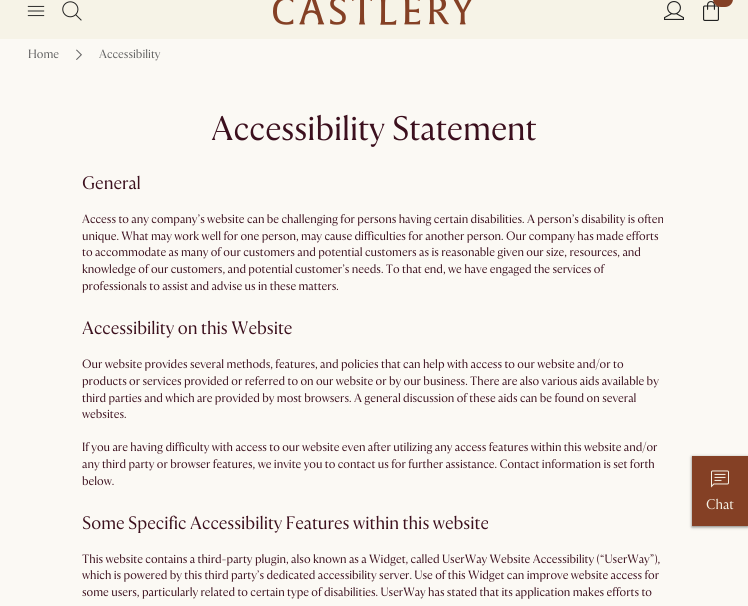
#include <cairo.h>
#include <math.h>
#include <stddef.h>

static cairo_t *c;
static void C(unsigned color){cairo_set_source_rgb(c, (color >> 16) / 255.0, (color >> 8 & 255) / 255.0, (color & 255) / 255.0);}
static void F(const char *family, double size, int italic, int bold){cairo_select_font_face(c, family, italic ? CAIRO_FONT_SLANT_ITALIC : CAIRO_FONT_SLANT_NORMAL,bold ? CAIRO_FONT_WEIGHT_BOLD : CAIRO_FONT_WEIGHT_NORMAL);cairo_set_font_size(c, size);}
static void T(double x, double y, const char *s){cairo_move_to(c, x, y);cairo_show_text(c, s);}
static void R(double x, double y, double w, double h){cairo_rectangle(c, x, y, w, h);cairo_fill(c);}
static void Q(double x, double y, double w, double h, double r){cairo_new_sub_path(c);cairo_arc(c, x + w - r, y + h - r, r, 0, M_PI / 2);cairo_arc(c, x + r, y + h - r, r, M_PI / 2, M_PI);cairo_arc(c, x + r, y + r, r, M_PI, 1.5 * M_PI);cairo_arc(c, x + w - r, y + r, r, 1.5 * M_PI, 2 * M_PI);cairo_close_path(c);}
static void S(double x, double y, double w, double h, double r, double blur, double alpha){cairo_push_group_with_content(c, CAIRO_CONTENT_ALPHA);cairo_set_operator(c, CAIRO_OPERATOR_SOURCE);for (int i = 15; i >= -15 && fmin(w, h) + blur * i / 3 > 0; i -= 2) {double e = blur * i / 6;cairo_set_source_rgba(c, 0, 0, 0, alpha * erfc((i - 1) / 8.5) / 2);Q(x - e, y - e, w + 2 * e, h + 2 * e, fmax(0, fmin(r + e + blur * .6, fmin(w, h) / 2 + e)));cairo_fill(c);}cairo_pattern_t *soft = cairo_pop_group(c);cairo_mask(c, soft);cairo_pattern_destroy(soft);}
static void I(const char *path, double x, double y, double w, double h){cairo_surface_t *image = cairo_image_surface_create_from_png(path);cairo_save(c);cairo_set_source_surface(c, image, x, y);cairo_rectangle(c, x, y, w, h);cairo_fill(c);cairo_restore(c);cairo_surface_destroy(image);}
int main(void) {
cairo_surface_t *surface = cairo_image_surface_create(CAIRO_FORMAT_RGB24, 748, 606);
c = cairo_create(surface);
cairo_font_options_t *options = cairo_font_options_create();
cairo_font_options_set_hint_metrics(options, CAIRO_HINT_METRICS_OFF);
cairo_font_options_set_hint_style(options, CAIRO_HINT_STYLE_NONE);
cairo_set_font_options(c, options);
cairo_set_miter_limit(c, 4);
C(0xfbf9f4);
cairo_paint(c);
C(0xf6f3e7);
R(0,0,748,39);
I("1.png",27,5,18,12);
I("2.png",62,1,20,20);
I("3.png",273,0,199,25);
I("4.png",664,1,20,19);
I("5.png",703,1,16,20);
C(0x844025);
Q(713,-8,20,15,8);
cairo_fill(c);
F("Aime",12,0,0);
C(0x616161);
T(28,58,"Home");
I("6.png",76,49,6,11);
T(99,58,"Accessibility");
F("Aime",34,0,0);
C(0x3c101e);
T(211,140,"Accessibility Statement");
F("Aime",18,0,0);
T(82,189,"General");
F("Aime",12,0,0);
T(82,223,"Access to any company’s website can be challenging for persons having certain disabilities. A person’s disability is often");
T(82,240,"unique. What may work well for one person, may cause difficulties for another person. Our company has made efforts");
T(82,256,"to accommodate as many of our customers and potential customers as is reasonable given our size, resources, and");
T(82,273,"knowledge of our customers, and potential customer’s needs. To that end, we have engaged the services of");
T(82,290,"professionals to assist and advise us in these matters.");
F("Aime",18,0,0);
T(82,334,"Accessibility on this Website");
F("Aime",12,0,0);
T(82,368,"Our website provides several methods, features, and policies that can help with access to our website and/or to");
T(82,385,"products or services provided or referred to on our website or by our business. There are also various aids available by");
T(82,402,"third parties and which are provided by most browsers. A general discussion of these aids can be found on several");
T(82,418,"websites.");
T(82,451,"If you are having difficulty with access to our website even after utilizing any access features within this website and/or");
T(82,468,"any third party or browser features, we invite you to contact us for further assistance. Contact information is set forth");
T(82,485,"below.");
F("Aime",18,0,0);
T(82,529,"Some Specific Accessibility Features within this website");
F("Aime",12,0,0);
T(82,563,"This website contains a third-party plugin, also known as a Widget, called UserWay Website Accessibility (“UserWay”),");
T(82,579,"which is powered by this third party’s dedicated accessibility server. Use of this Widget can improve website access for");
T(82,596,"some users, particularly related to certain type of disabilities. UserWay has stated that its application makes efforts to");
C(0x000000);
S(692,457,56,70,0,1.5,.5);
C(0x844025);
R(692,456,56,70);
I("7.png",711,470,18,18);
F("Aime",14,0,0);
C(0xf6f3e7);
T(706,509,"Chat");
cairo_surface_write_to_png(surface, "o.png");
cairo_font_options_destroy(options);
cairo_destroy(c);
cairo_surface_destroy(surface);
return 0;
}
